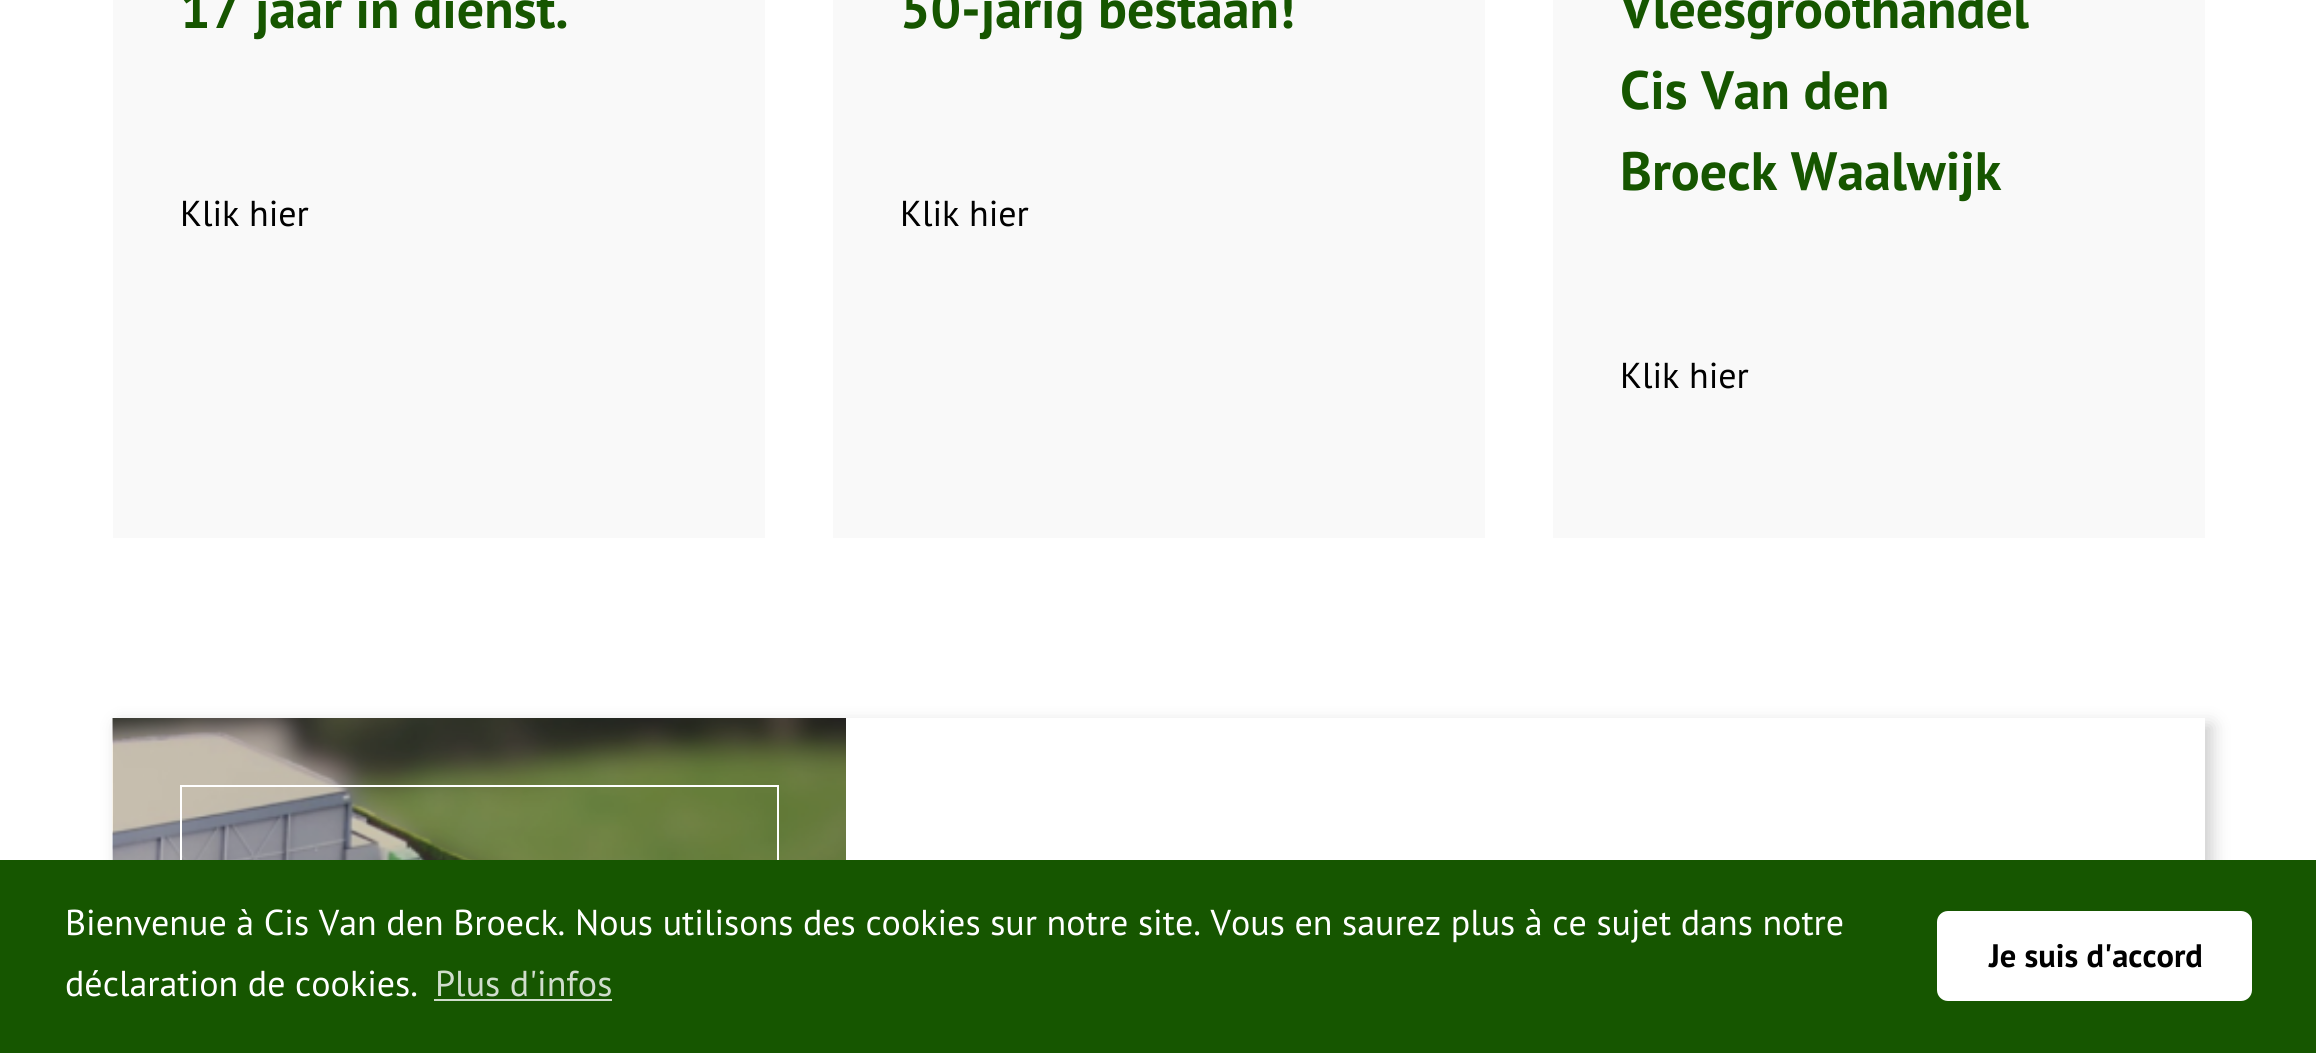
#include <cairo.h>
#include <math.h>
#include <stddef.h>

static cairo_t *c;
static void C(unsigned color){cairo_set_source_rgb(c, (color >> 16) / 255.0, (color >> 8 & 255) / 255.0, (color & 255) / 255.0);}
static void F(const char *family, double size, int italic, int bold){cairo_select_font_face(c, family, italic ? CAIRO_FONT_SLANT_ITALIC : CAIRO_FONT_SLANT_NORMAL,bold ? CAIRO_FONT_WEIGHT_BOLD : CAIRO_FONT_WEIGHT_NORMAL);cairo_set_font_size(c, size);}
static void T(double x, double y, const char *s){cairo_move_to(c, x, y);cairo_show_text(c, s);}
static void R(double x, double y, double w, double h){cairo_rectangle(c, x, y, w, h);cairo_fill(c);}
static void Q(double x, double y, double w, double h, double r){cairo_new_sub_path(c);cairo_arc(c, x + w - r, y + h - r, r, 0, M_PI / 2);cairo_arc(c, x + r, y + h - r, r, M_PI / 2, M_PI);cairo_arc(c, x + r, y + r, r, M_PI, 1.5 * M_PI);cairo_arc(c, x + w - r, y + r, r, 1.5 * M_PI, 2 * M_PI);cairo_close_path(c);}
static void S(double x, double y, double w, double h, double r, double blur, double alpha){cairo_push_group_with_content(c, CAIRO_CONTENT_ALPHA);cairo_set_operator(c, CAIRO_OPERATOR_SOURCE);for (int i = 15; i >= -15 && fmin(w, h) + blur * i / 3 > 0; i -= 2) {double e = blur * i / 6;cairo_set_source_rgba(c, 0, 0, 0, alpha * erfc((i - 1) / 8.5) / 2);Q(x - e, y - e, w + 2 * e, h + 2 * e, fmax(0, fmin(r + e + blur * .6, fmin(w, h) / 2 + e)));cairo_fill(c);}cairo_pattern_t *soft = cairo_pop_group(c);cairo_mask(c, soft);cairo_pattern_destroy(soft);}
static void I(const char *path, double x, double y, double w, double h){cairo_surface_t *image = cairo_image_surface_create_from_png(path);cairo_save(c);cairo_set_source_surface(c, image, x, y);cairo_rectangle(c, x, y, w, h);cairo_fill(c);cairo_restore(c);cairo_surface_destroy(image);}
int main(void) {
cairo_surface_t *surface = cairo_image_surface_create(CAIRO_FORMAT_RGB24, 2316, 1053);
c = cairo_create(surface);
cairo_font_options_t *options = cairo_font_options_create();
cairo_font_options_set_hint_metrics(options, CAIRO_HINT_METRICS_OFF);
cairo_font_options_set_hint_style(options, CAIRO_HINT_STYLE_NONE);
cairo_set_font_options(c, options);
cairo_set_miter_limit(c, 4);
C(0xffffff);
cairo_paint(c);
C(0xf9f9f9);
R(113,0,652,538);
F("PT Sans",54,0,1);
C(0x165600);
T(180,28,"17 jaar in dienst.");
F("PT Sans",36,0,0);
C(0x000000);
T(180,226,"Klik hier");
C(0xf9f9f9);
R(833,0,652,538);
F("PT Sans",54,0,1);
C(0x165600);
T(900,28,"50-jarig bestaan!");
F("PT Sans",36,0,0);
C(0x000000);
T(900,226,"Klik hier");
C(0xf9f9f9);
R(1553,0,652,538);
F("PT Sans",54,0,1);
C(0x165600);
T(1620,28,"Vleesgroothandel");
T(1620,109,"Cis Van den");
T(1620,190,"Broeck Waalwijk");
F("PT Sans",36,0,0);
C(0x000000);
T(1620,388,"Klik hier");
cairo_save(c);
cairo_set_fill_rule(c,CAIRO_FILL_RULE_EVEN_ODD);
cairo_new_path(c);
cairo_move_to(c,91,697);
cairo_line_to(c,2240,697);
cairo_line_to(c,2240,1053);
cairo_line_to(c,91,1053);
cairo_close_path(c);
cairo_move_to(c,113,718);
cairo_line_to(c,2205,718);
cairo_line_to(c,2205,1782);
cairo_line_to(c,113,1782);
cairo_close_path(c);
cairo_clip(c);
C(0x000000);
S(119,725,2093,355,0,9,.2);
cairo_restore(c);
I("1.png",112,718,734,142);
cairo_rectangle(c,181,786,597,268);
C(0xffffff);
cairo_stroke(c);
C(0x165600);
R(0,860,2316,193);
C(0xffffff);
T(65,935,"Bienvenue à Cis Van den Broeck. Nous utilisons des cookies sur notre site. Vous en saurez plus à ce sujet dans notre");
T(65,996,"déclaration de cookies.");
C(0xd0ddcc);
T(435,996,"Plus d'infos");
R(434,999,178,2);
C(0xffffff);
Q(1937,911,315,90,11);
cairo_fill(c);
F("PT Sans",32.5,0,1);
C(0x000000);
T(1989,967,"Je suis d'accord");
cairo_surface_write_to_png(surface, "o.png");
cairo_font_options_destroy(options);
cairo_destroy(c);
cairo_surface_destroy(surface);
return 0;
}
